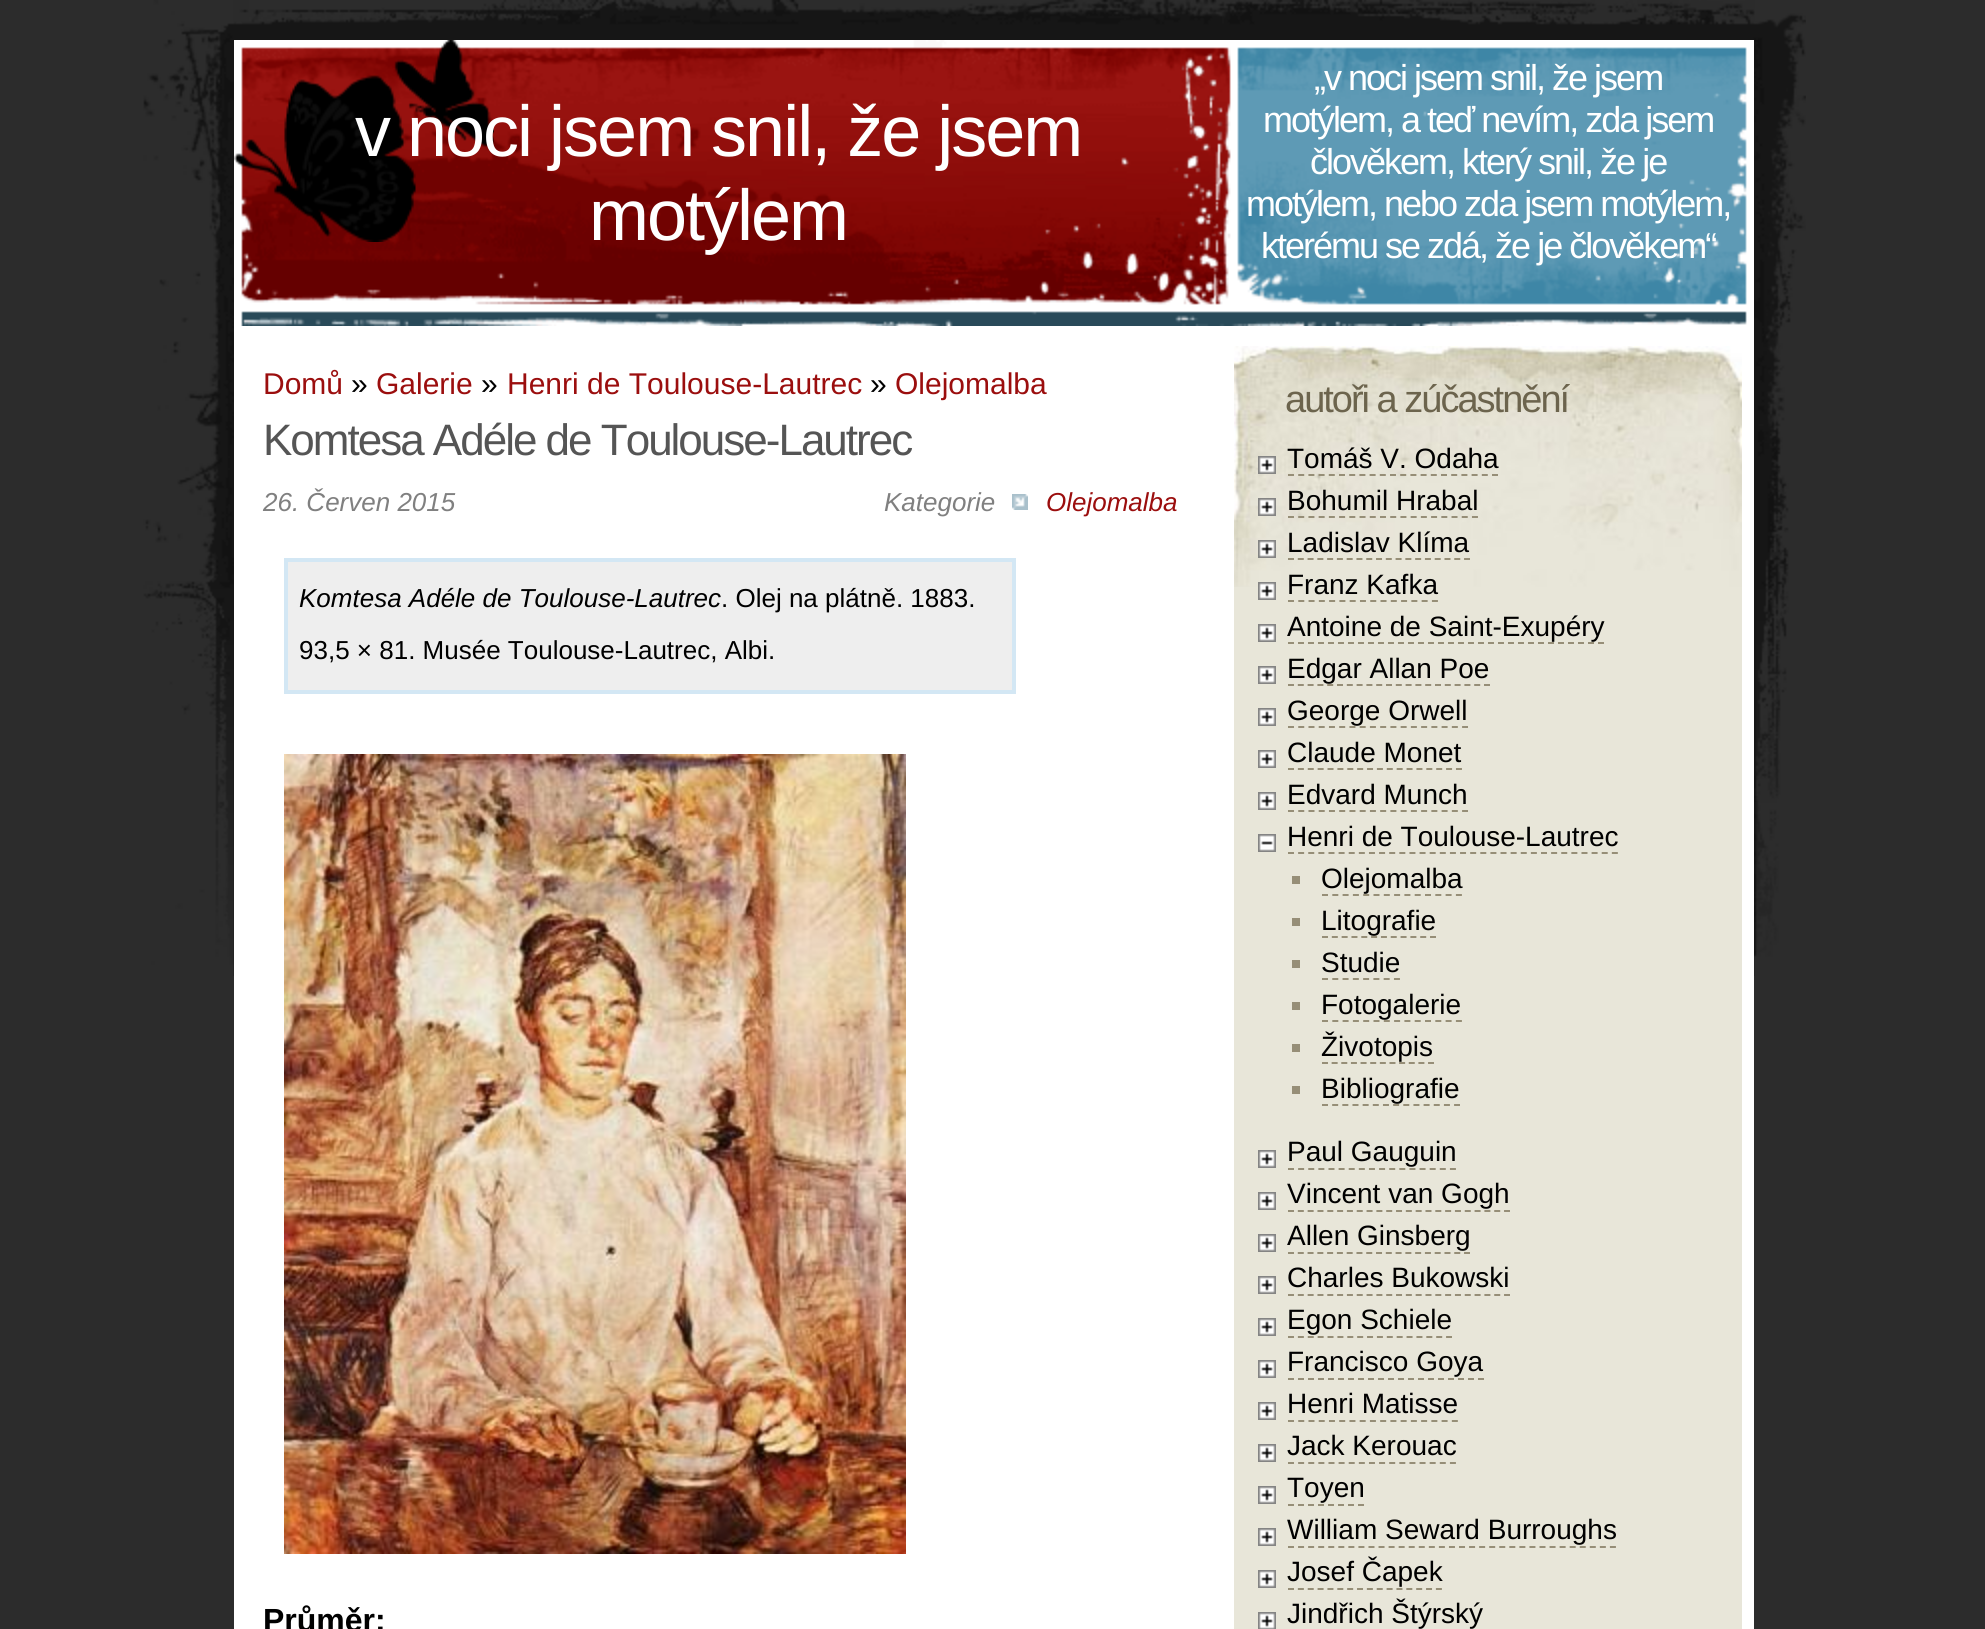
#include <cairo.h>
#include <math.h>
#include <stddef.h>

static cairo_t *c;
static void C(unsigned color){cairo_set_source_rgb(c, (color >> 16) / 255.0, (color >> 8 & 255) / 255.0, (color & 255) / 255.0);}
static void F(const char *family, double size, int italic, int bold){cairo_select_font_face(c, family, italic ? CAIRO_FONT_SLANT_ITALIC : CAIRO_FONT_SLANT_NORMAL,bold ? CAIRO_FONT_WEIGHT_BOLD : CAIRO_FONT_WEIGHT_NORMAL);cairo_set_font_size(c, size);}
static void T(double x, double y, const char *s){cairo_move_to(c, x, y);cairo_show_text(c, s);}
static void L(double x, double y, const char *s, double letter, double word){cairo_move_to(c, x, y);while (*s) {char ch[5] = {0};int n = 0;do ch[n++] = *s++; while ((*s & 0xC0) == 0x80);cairo_show_text(c, ch);cairo_rel_move_to(c, letter + word * (*ch == ' '), 0);}}
static void R(double x, double y, double w, double h){cairo_rectangle(c, x, y, w, h);cairo_fill(c);}
static void I(const char *path, double x, double y, double w, double h){cairo_surface_t *image = cairo_image_surface_create_from_png(path);cairo_save(c);cairo_set_source_surface(c, image, x, y);cairo_rectangle(c, x, y, w, h);cairo_fill(c);cairo_restore(c);cairo_surface_destroy(image);}
int main(void) {
cairo_surface_t *surface = cairo_image_surface_create(CAIRO_FORMAT_RGB24, 1985, 1629);
c = cairo_create(surface);
cairo_font_options_t *options = cairo_font_options_create();
cairo_font_options_set_hint_metrics(options, CAIRO_HINT_METRICS_OFF);
cairo_font_options_set_hint_style(options, CAIRO_HINT_STYLE_NONE);
cairo_set_font_options(c, options);
cairo_set_miter_limit(c, 4);
C(0x2c2c2c);
cairo_paint(c);
I("1.png",143,0,1663,976);
C(0xffffff);
R(234,40,1520,1589);
I("2.png",241,40,1506,286);
I("3.png",234,40,260,202);
F("Liberation Sans",72,0,0);
L(355,156,"v noci jsem snil, že jsem",-2,0);
L(589,240,"motýlem",-2,0);
F("Liberation Sans",36,0,0);
L(1314,90,"„v noci jsem snil, že jsem",-2,0);
L(1263,132,"motýlem, a teď nevím, zda jsem",-2,0);
L(1310,174,"člověkem, který snil, že je",-2,0);
L(1246,216,"motýlem, nebo zda jsem motýlem,",-2,0);
L(1261,258,"kterému se zdá, že je člověkem“",-2,0);
F("Liberation Sans",30,0,0);
C(0x9b0e0e);
T(263,394,"Domů");
C(0x000000);
T(351,394,"»");
C(0x9b0e0e);
T(376,394,"Galerie");
C(0x000000);
T(481,394,"»");
C(0x9b0e0e);
T(507,394,"Henri de Toulouse-Lautrec");
C(0x000000);
T(870,394,"»");
C(0x9b0e0e);
T(895,394,"Olejomalba");
F("Liberation Sans",44,0,0);
C(0x555555);
L(263,455,"Komtesa Adéle de Toulouse-Lautrec",-2,0);
F("Liberation Sans",26,1,0);
C(0x808080);
T(263,511,"26. Červen 2015");
T(884,511,"Kategorie");
I("4.png",1012,494,16,16);
C(0x9b0e0e);
T(1046,511,"Olejomalba");
C(0xeeeeee);
cairo_rectangle(c,286,560,728,132);
cairo_fill_preserve(c);
C(0xd3e7f4);
cairo_set_line_width(c,4);
cairo_stroke(c);
C(0x000000);
T(299,607,"Komtesa Adéle de Toulouse-Lautrec");
F("Liberation Sans",26,0,0);
T(721,607,". Olej na plátně. 1883.");
T(299,659,"93,5 × 81. Musée Toulouse-Lautrec, Albi.");
I("5.png",284,754,622,800);
F("Liberation Sans",32,0,1);
T(263,1631,"Průměr:");
C(0xe8e6d9);
R(1234,587,508,1042);
I("6.png",1234,346,508,241);
F("Liberation Sans",38,0,0);
C(0x6c644d);
L(1285,412,"autoři a zúčastnění",-2,0);
I("7.png",1258,456,18,18);
F("Liberation Sans",28,0,0);
C(0x000000);
T(1287,468,"Tomáš V. Odaha");
cairo_new_path(c);
cairo_move_to(c,1288,475);
cairo_line_to(c,1498,475);
C(0x968e77);
cairo_set_line_width(c,2);
cairo_set_dash(c,(double[]){6,4.2},2,0);
cairo_stroke(c);
I("7.png",1258,498,18,18);
C(0x000000);
T(1287,510,"Bohumil Hrabal");
cairo_new_path(c);
cairo_move_to(c,1288,517);
cairo_line_to(c,1478,517);
C(0x968e77);
cairo_set_dash(c,(double[]){6,4.22},2,0);
cairo_stroke(c);
I("7.png",1258,540,18,18);
C(0x000000);
T(1287,552,"Ladislav Klíma");
cairo_new_path(c);
cairo_move_to(c,1288,559);
cairo_line_to(c,1470,559);
C(0x968e77);
cairo_set_dash(c,(double[]){6,3.78},2,0);
cairo_stroke(c);
I("7.png",1258,582,18,18);
C(0x000000);
T(1287,594,"Franz Kafka");
cairo_new_path(c);
cairo_move_to(c,1288,601);
cairo_line_to(c,1438,601);
C(0x968e77);
cairo_set_dash(c,(double[]){6,4.28},2,0);
cairo_stroke(c);
I("7.png",1258,624,18,18);
C(0x000000);
T(1287,636,"Antoine de Saint-Exupéry");
cairo_new_path(c);
cairo_move_to(c,1288,643);
cairo_line_to(c,1604,643);
C(0x968e77);
cairo_set_dash(c,(double[]){6,4},2,0);
cairo_stroke(c);
I("7.png",1258,666,18,18);
C(0x000000);
T(1287,678,"Edgar Allan Poe");
cairo_new_path(c);
cairo_move_to(c,1288,685);
cairo_line_to(c,1490,685);
C(0x968e77);
cairo_set_dash(c,(double[]){6,3.8},2,0);
cairo_stroke(c);
I("7.png",1258,708,18,18);
C(0x000000);
T(1287,720,"George Orwell");
cairo_new_path(c);
cairo_move_to(c,1288,727);
cairo_line_to(c,1468,727);
C(0x968e77);
cairo_set_dash(c,(double[]){6,4.24},2,0);
cairo_stroke(c);
I("7.png",1258,750,18,18);
C(0x000000);
T(1287,762,"Claude Monet");
cairo_new_path(c);
cairo_move_to(c,1288,769);
cairo_line_to(c,1462,769);
C(0x968e77);
cairo_set_dash(c,(double[]){6,3.88},2,0);
cairo_stroke(c);
I("7.png",1258,792,18,18);
C(0x000000);
T(1287,804,"Edvard Munch");
cairo_new_path(c);
cairo_move_to(c,1288,811);
cairo_line_to(c,1468,811);
C(0x968e77);
cairo_set_dash(c,(double[]){6,4.24},2,0);
cairo_stroke(c);
I("8.png",1258,834,18,18);
C(0x000000);
T(1287,846,"Henri de Toulouse-Lautrec");
cairo_new_path(c);
cairo_move_to(c,1288,853);
cairo_line_to(c,1618,853);
C(0x968e77);
cairo_set_dash(c,(double[]){6,4.12},2,0);
cairo_stroke(c);
R(1292,876,8,8);
C(0x000000);
T(1321,888,"Olejomalba");
cairo_new_path(c);
cairo_move_to(c,1322,895);
cairo_line_to(c,1462,895);
C(0x968e77);
cairo_set_dash(c,(double[]){6,4.3},2,0);
cairo_stroke(c);
R(1292,918,8,8);
C(0x000000);
T(1321,930,"Litografie");
cairo_new_path(c);
cairo_move_to(c,1322,937);
cairo_line_to(c,1436,937);
C(0x968e77);
cairo_set_dash(c,(double[]){6,3.82},2,0);
cairo_stroke(c);
R(1292,960,8,8);
C(0x000000);
T(1321,972,"Studie");
cairo_new_path(c);
cairo_move_to(c,1322,979);
cairo_line_to(c,1400,979);
C(0x968e77);
cairo_set_dash(c,(double[]){6,4.28},2,0);
cairo_stroke(c);
R(1292,1002,8,8);
C(0x000000);
T(1321,1014,"Fotogalerie");
cairo_new_path(c);
cairo_move_to(c,1322,1021);
cairo_line_to(c,1462,1021);
C(0x968e77);
cairo_set_dash(c,(double[]){6,4.3},2,0);
cairo_stroke(c);
R(1292,1044,8,8);
C(0x000000);
T(1321,1056,"Životopis");
cairo_new_path(c);
cairo_move_to(c,1322,1063);
cairo_line_to(c,1434,1063);
C(0x968e77);
cairo_set_dash(c,(double[]){6,3.64},2,0);
cairo_stroke(c);
R(1292,1086,8,8);
C(0x000000);
T(1321,1098,"Bibliografie");
cairo_new_path(c);
cairo_move_to(c,1322,1105);
cairo_line_to(c,1460,1105);
C(0x968e77);
cairo_set_dash(c,(double[]){6,4.16},2,0);
cairo_stroke(c);
I("7.png",1258,1150,18,18);
C(0x000000);
T(1287,1161,"Paul Gauguin");
cairo_new_path(c);
cairo_move_to(c,1288,1169);
cairo_line_to(c,1456,1169);
C(0x968e77);
cairo_set_dash(c,(double[]){6,4.12},2,0);
cairo_stroke(c);
I("7.png",1258,1192,18,18);
C(0x000000);
T(1287,1203,"Vincent van Gogh");
cairo_new_path(c);
cairo_move_to(c,1288,1211);
cairo_line_to(c,1510,1211);
C(0x968e77);
cairo_set_dash(c,(double[]){6,3.82},2,0);
cairo_stroke(c);
I("7.png",1258,1234,18,18);
C(0x000000);
T(1287,1245,"Allen Ginsberg");
cairo_new_path(c);
cairo_move_to(c,1288,1253);
cairo_line_to(c,1470,1253);
C(0x968e77);
cairo_set_dash(c,(double[]){6,3.78},2,0);
cairo_stroke(c);
I("7.png",1258,1276,18,18);
C(0x000000);
T(1287,1287,"Charles Bukowski");
cairo_new_path(c);
cairo_move_to(c,1288,1295);
cairo_line_to(c,1510,1295);
C(0x968e77);
cairo_set_dash(c,(double[]){6,3.82},2,0);
cairo_stroke(c);
I("7.png",1258,1318,18,18);
C(0x000000);
T(1287,1329,"Egon Schiele");
cairo_new_path(c);
cairo_move_to(c,1288,1337);
cairo_line_to(c,1452,1337);
C(0x968e77);
cairo_set_dash(c,(double[]){6,3.88},2,0);
cairo_stroke(c);
I("7.png",1258,1360,18,18);
C(0x000000);
T(1287,1371,"Francisco Goya");
cairo_new_path(c);
cairo_move_to(c,1288,1379);
cairo_line_to(c,1484,1379);
C(0x968e77);
cairo_set_dash(c,(double[]){6,4},2,0);
cairo_stroke(c);
I("7.png",1258,1402,18,18);
C(0x000000);
T(1287,1413,"Henri Matisse");
cairo_new_path(c);
cairo_move_to(c,1288,1421);
cairo_line_to(c,1458,1421);
C(0x968e77);
cairo_set_dash(c,(double[]){6,4.24},2,0);
cairo_stroke(c);
I("7.png",1258,1444,18,18);
C(0x000000);
T(1287,1455,"Jack Kerouac");
cairo_new_path(c);
cairo_move_to(c,1288,1463);
cairo_line_to(c,1456,1463);
C(0x968e77);
cairo_set_dash(c,(double[]){6,4.12},2,0);
cairo_stroke(c);
I("7.png",1258,1486,18,18);
C(0x000000);
T(1287,1497,"Toyen");
cairo_new_path(c);
cairo_move_to(c,1288,1505);
cairo_line_to(c,1364,1505);
C(0x968e77);
cairo_set_dash(c,(double[]){6,4},2,0);
cairo_stroke(c);
I("7.png",1258,1528,18,18);
C(0x000000);
T(1287,1539,"William Seward Burroughs");
cairo_new_path(c);
cairo_move_to(c,1288,1547);
cairo_line_to(c,1616,1547);
C(0x968e77);
cairo_set_dash(c,(double[]){6,4.06},2,0);
cairo_stroke(c);
I("7.png",1258,1570,18,18);
C(0x000000);
T(1287,1581,"Josef Čapek");
cairo_new_path(c);
cairo_move_to(c,1288,1589);
cairo_line_to(c,1442,1589);
C(0x968e77);
cairo_set_dash(c,(double[]){6,3.86},2,0);
cairo_stroke(c);
I("9.png",1258,1612,18,17);
C(0x000000);
T(1287,1623,"Jindřich Štýrský");
cairo_surface_write_to_png(surface, "o.png");
cairo_font_options_destroy(options);
cairo_destroy(c);
cairo_surface_destroy(surface);
return 0;
}
